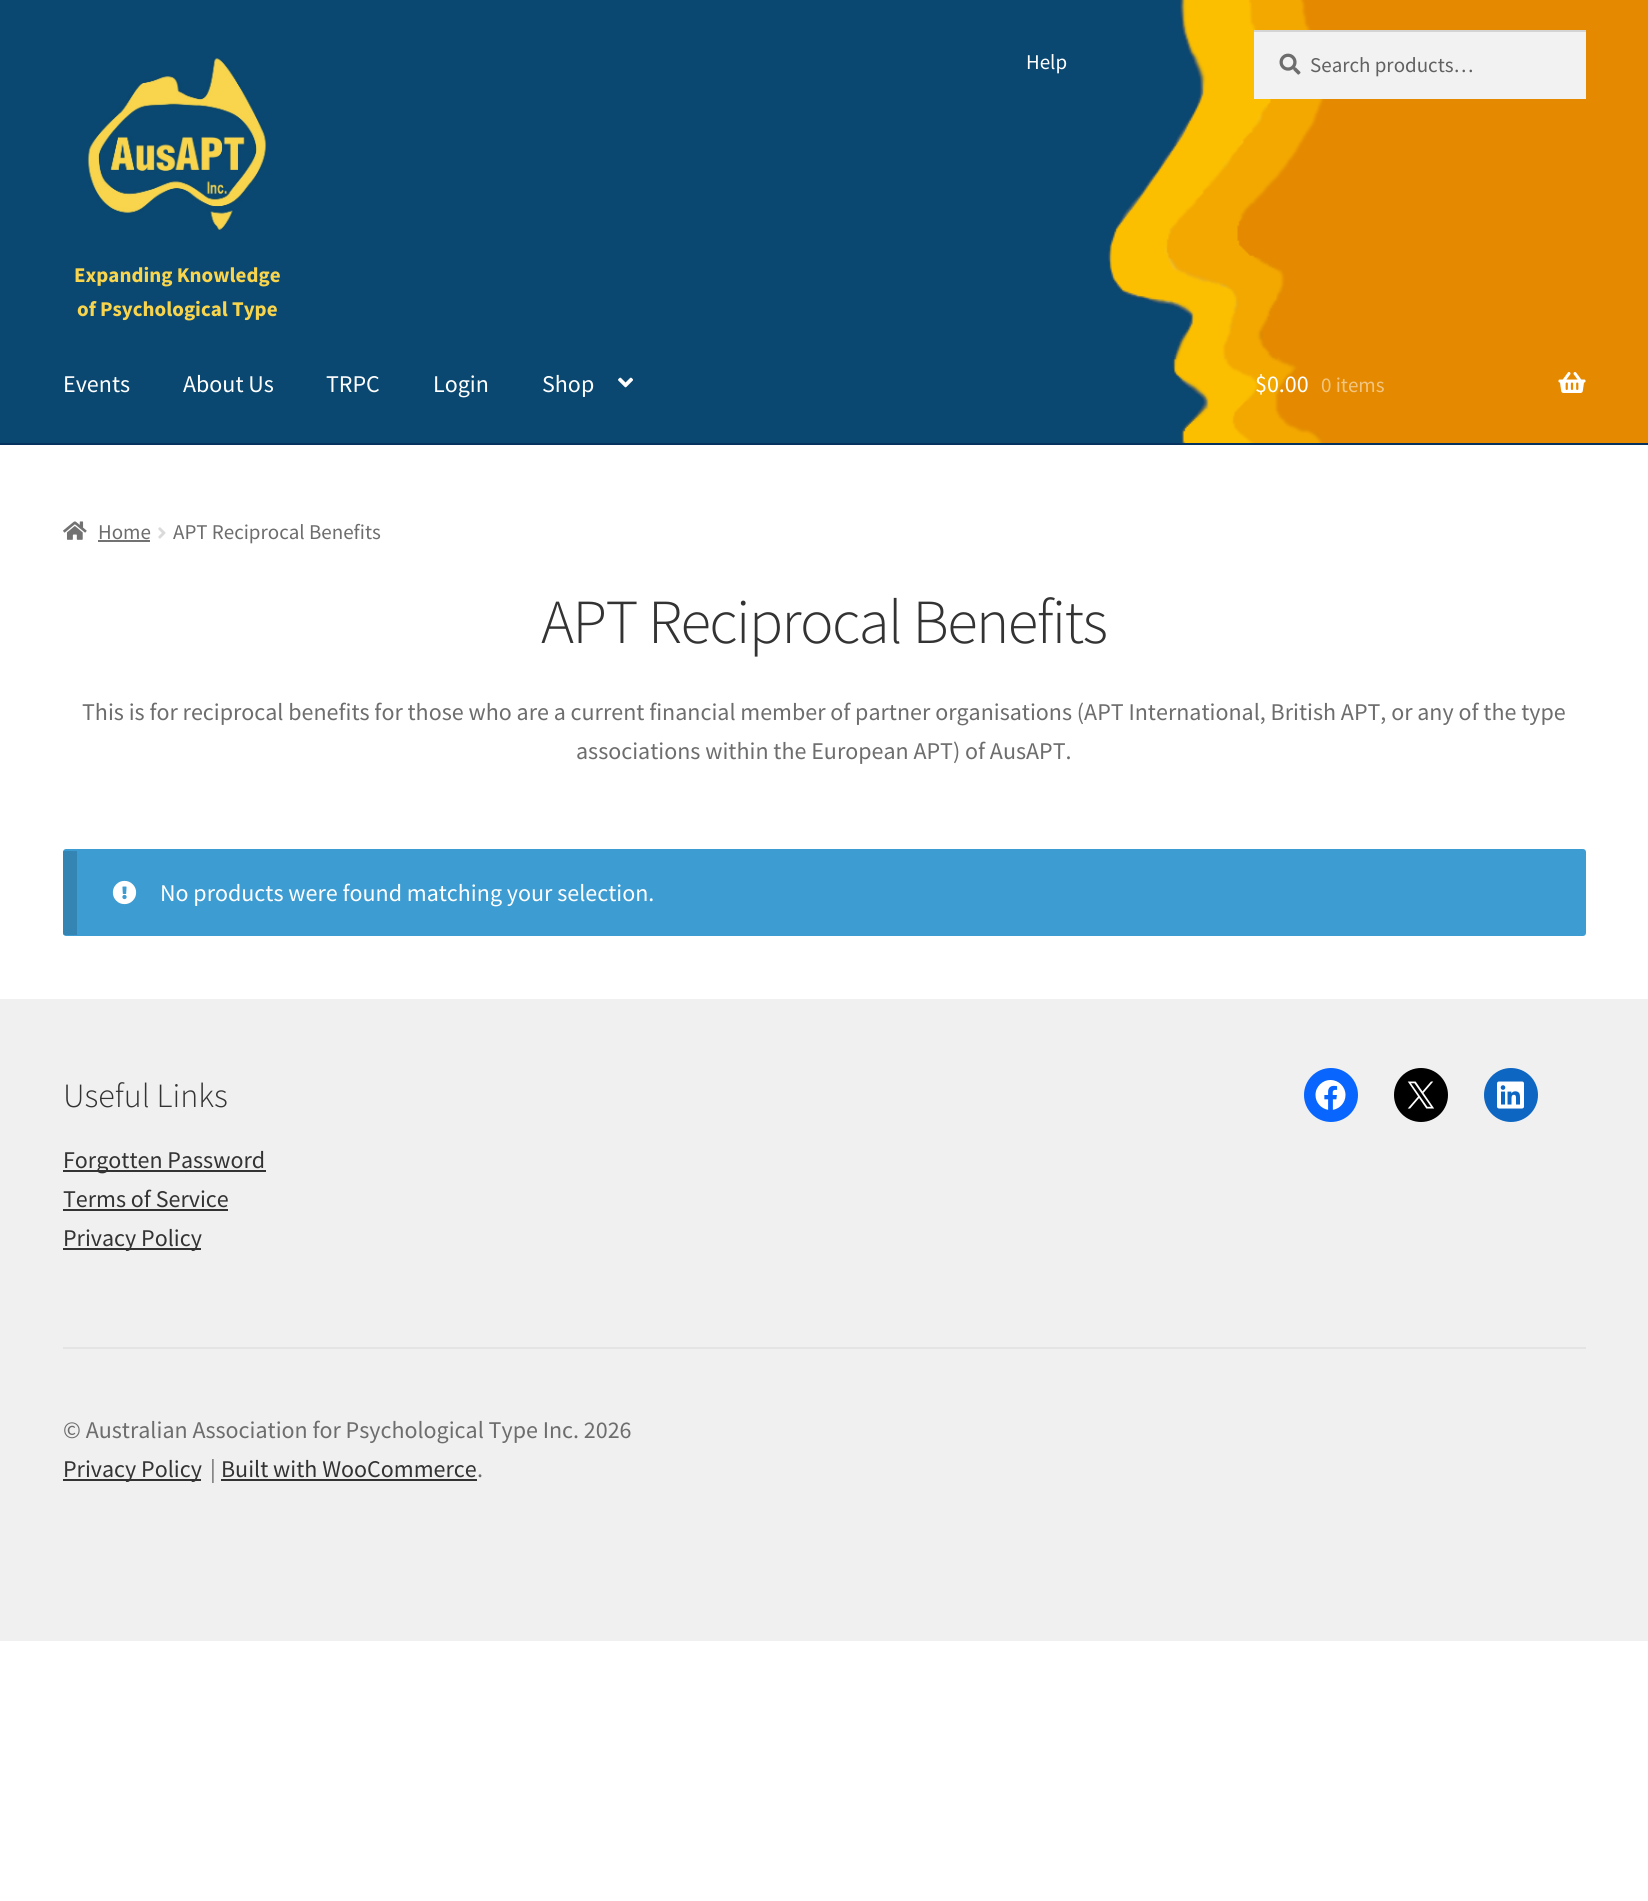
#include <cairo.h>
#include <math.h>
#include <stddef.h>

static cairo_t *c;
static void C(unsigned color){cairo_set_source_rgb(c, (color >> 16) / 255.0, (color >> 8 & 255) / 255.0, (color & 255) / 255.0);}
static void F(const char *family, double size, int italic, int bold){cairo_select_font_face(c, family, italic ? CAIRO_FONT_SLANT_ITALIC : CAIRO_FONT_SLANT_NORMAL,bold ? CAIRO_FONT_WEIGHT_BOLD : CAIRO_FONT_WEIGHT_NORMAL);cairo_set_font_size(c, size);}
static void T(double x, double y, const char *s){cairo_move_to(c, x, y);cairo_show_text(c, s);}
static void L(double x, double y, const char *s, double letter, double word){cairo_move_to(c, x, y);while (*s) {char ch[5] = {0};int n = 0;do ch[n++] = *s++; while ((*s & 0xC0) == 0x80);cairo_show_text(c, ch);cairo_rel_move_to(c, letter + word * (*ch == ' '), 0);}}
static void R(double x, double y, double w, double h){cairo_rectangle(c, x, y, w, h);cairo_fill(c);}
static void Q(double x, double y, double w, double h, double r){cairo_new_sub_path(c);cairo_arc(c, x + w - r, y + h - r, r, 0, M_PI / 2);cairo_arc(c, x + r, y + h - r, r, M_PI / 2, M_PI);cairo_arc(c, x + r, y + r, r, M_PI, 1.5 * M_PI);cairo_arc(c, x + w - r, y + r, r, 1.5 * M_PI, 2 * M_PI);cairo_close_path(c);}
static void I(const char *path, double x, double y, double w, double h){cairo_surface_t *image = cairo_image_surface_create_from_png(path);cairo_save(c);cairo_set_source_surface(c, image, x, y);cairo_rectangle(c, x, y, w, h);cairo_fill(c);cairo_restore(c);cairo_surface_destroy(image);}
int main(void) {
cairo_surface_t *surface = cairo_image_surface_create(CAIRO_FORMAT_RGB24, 1648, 1901);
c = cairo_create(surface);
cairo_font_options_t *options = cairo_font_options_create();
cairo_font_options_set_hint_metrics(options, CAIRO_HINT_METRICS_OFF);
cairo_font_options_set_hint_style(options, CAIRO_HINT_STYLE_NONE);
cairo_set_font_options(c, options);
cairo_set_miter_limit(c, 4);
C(0xffffff);
cairo_paint(c);
C(0x0a4871);
R(0,0,1108,443);
I("1.png",1108,0,540,443);
C(0x063260);
R(0,443,1648,2);
F("Source Sans Pro",21,0,0);
C(0xffffff);
T(1026,69,"Help");
C(0xf2f2f2);
R(1254,32,332,67);
I("2.png",1279,53,22,22);
C(0xd4d4d4);
R(1254,30,332,2);
C(0x616161);
T(1310,72,"Search products…");
I("3.png",87,58,180,172);
F("Source Sans Pro",21,0,1);
C(0xf9d54d);
T(74,282,"Expanding Knowledge");
T(77,316,"of Psychological Type");
F("Source Sans Pro",24,0,0);
C(0xffffff);
T(63,392,"Events");
T(183,392,"About Us");
T(326,392,"TRPC");
T(433,392,"Login");
T(542,392,"Shop");
I("4.png",618,377,15,11);
T(1255,392,"$0.00");
F("Source Sans Pro",21,0,0);
C(0xf2c580);
T(1321,392,"0 items");
I("5.png",1558,372,28,21);
I("6.png",63,521,24,19);
C(0x6d6d6d);
T(98,539,"Home");
C(0x727272);
R(98,540,52,2);
I("7.png",158,527,8,12);
C(0x6d6d6d);
T(173,539,"APT Reciprocal Benefits");
F("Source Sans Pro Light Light",62.75,0,0);
C(0x333333);
L(541,643,"APT Reciprocal Benefits",-1.5,0);
F("Source Sans Pro",24,0,0);
C(0x6d6d6d);
T(82,720,"This is for reciprocal benefits for those who are a current financial member of partner organisations (APT International, British APT, or any of the type");
T(576,759,"associations within the European APT) of AusAPT.");
C(0x3d9cd2);
Q(63,849,1523,87,3);
cairo_fill(c);
cairo_set_source_rgba(c,0,0,0,0.15);
R(63,851,14,84);
I("8.png",112,880,25,25);
C(0xffffff);
T(160,901,"No products were found matching your selection.");
C(0xf0f0f0);
R(0,999,1648,642);
C(0xe4e4e4);
R(63,1347,1523,2);
F("Source Sans Pro Light Light",34,0,0);
C(0x333333);
T(63,1107,"Useful Links");
R(63,1170,203,2);
F("Source Sans Pro",24,0,0);
T(63,1168,"Forgotten Password");
T(63,1207,"Terms of Service");
R(63,1209,165,2);
R(63,1248,138,2);
T(63,1246,"Privacy Policy");
C(0x0866ff);
cairo_new_path(c);
cairo_arc(c,1331,1095,27,0,2 * M_PI);
cairo_fill(c);
I("9.png",1315,1080,31,30);
C(0x000000);
cairo_arc(c,1421,1095,27,0,2 * M_PI);
cairo_fill(c);
I("10.png",1407,1081,28,28);
C(0x0d66c2);
cairo_arc(c,1511,1095,27,0,2 * M_PI);
cairo_fill(c);
I("11.png",1497,1081,27,28);
C(0x6d6d6d);
T(63,1438,"© Australian Association for Psychological Type Inc. 2026");
C(0x333333);
R(63,1479,138,2);
T(63,1477,"Privacy Policy");
C(0x6d6d6d);
T(210,1477,"|");
C(0x333333);
T(221,1477,"Built with WooCommerce");
R(221,1479,256,2);
C(0x6d6d6d);
T(477,1477,".");
cairo_surface_write_to_png(surface, "o.png");
cairo_font_options_destroy(options);
cairo_destroy(c);
cairo_surface_destroy(surface);
return 0;
}
